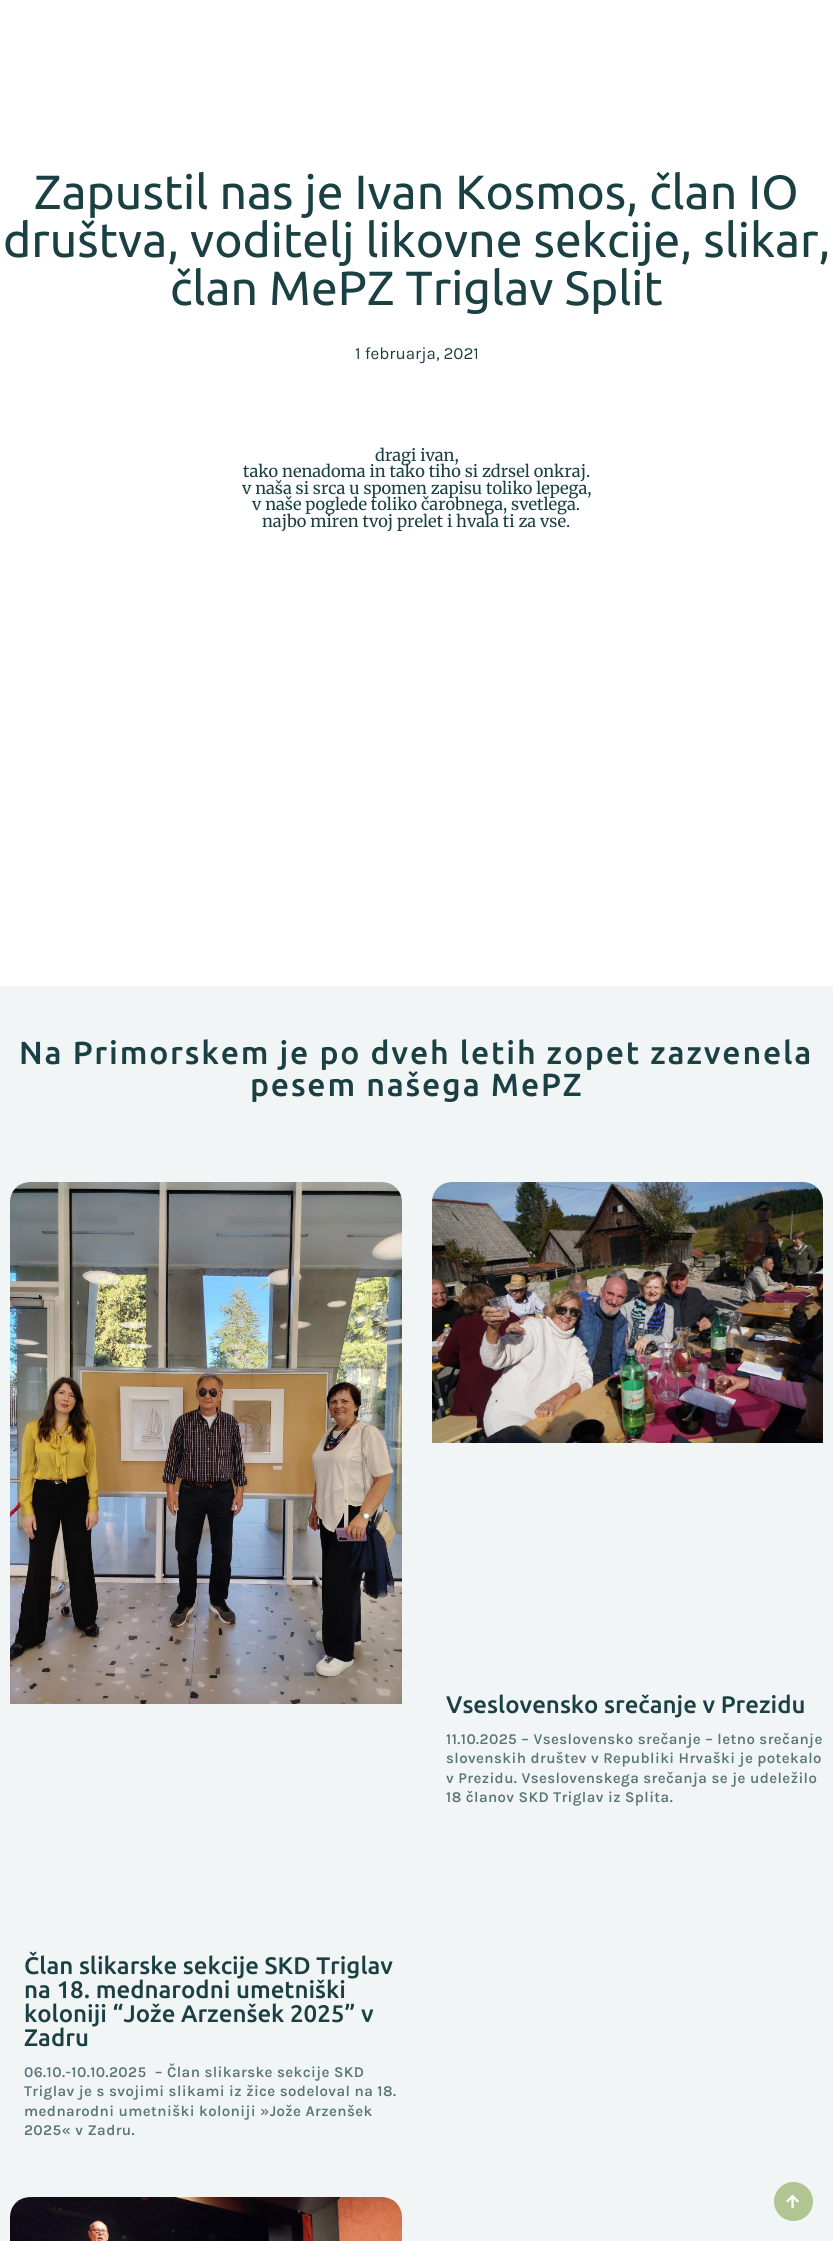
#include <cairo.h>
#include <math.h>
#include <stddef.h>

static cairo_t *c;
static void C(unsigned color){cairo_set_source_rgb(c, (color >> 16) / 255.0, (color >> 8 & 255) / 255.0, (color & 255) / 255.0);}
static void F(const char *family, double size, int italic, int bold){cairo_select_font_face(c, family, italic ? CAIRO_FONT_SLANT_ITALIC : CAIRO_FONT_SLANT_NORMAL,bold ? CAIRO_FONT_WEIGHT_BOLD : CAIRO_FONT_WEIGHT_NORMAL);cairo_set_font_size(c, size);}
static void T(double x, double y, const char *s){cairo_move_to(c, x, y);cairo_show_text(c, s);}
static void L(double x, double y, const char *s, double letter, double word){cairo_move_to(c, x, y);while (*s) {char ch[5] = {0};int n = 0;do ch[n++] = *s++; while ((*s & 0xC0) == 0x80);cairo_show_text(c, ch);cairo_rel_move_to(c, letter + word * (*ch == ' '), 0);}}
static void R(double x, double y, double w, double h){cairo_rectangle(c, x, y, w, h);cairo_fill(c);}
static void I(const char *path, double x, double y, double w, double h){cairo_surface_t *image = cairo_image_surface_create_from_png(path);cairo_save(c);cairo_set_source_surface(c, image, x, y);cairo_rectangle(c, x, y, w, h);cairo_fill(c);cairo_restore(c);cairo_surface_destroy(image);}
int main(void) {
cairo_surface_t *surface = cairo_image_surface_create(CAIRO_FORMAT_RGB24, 833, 2241);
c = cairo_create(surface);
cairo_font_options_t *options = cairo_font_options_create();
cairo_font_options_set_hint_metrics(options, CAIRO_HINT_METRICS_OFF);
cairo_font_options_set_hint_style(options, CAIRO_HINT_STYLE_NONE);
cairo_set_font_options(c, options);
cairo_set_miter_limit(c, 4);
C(0xffffff);
cairo_paint(c);
F("Ubuntu",48,0,0);
C(0x1b4043);
T(34,209,"Zapustil nas je Ivan Kosmos, član IO");
T(3,257,"društva, voditelj likovne sekcije, slikar,");
T(170,305,"član MePZ Triglav Split");
F("Karla",17,0,0);
T(355,359,"1 februarja, 2021");
F("Merriweather",16.4,0,0);
T(375,461,"dragi ivan,");
T(243,477,"tako nenadoma in tako tiho si zdrsel onkraj.");
T(242,494,"v naša si srca u spomen zapisu toliko lepega,");
T(252,510,"v naše poglede toliko čarobnega, svetlega.");
T(262,527,"najbo miren tvoj prelet i hvala ti za vse.");
C(0xf1f5f6);
R(0,986,833,1255);
F("Ubuntu Medium",32,0,0);
C(0x1b4043);
L(19,1064,"Na Primorskem je po dveh letih zopet zazvenela",1.8,0);
L(250,1096,"pesem našega MePZ",1.8,0);
I("1.png",432,1182,391,261);
F("Ubuntu Medium",24,0,0);
T(446,1713,"Vseslovensko srečanje v Prezidu");
F("Karla SemiBold",15,0,0);
C(0x597477);
L(446,1744,"11.10.2025 – Vseslovensko srečanje – letno srečanje",.4,0);
L(446,1763,"slovenskih društev v Republiki Hrvaški je potekalo",.4,0);
L(446,1783,"v Prezidu. Vseslovenskega srečanja se je udeležilo",.4,0);
L(446,1802,"18 članov SKD Triglav iz Splita.",.4,0);
I("2.png",10,1182,392,522);
F("Ubuntu Medium",24,0,0);
C(0x1b4043);
T(24,1974,"Član slikarske sekcije SKD Triglav");
T(24,1998,"na 18. mednarodni umetniški");
T(24,2022,"koloniji “Jože Arzenšek 2025” v");
T(24,2046,"Zadru");
F("Karla SemiBold",15,0,0);
C(0x597477);
L(24,2077,"06.10.-10.10.2025  – Član slikarske sekcije SKD",.4,0);
L(24,2096,"Triglav je s svojimi slikami iz žice sodeloval na 18.",.4,0);
L(24,2116,"mednarodni umetniški koloniji »Jože Arzenšek",.4,0);
L(24,2135,"2025« v Zadru.",.4,0);
I("3.png",10,2197,392,44);
C(0xb0c592);
cairo_arc(c,793.5,2201.5,19.5,0,2 * M_PI);
cairo_fill(c);
I("4.png",786,2194,13,14);
cairo_surface_write_to_png(surface, "o.png");
cairo_font_options_destroy(options);
cairo_destroy(c);
cairo_surface_destroy(surface);
return 0;
}
